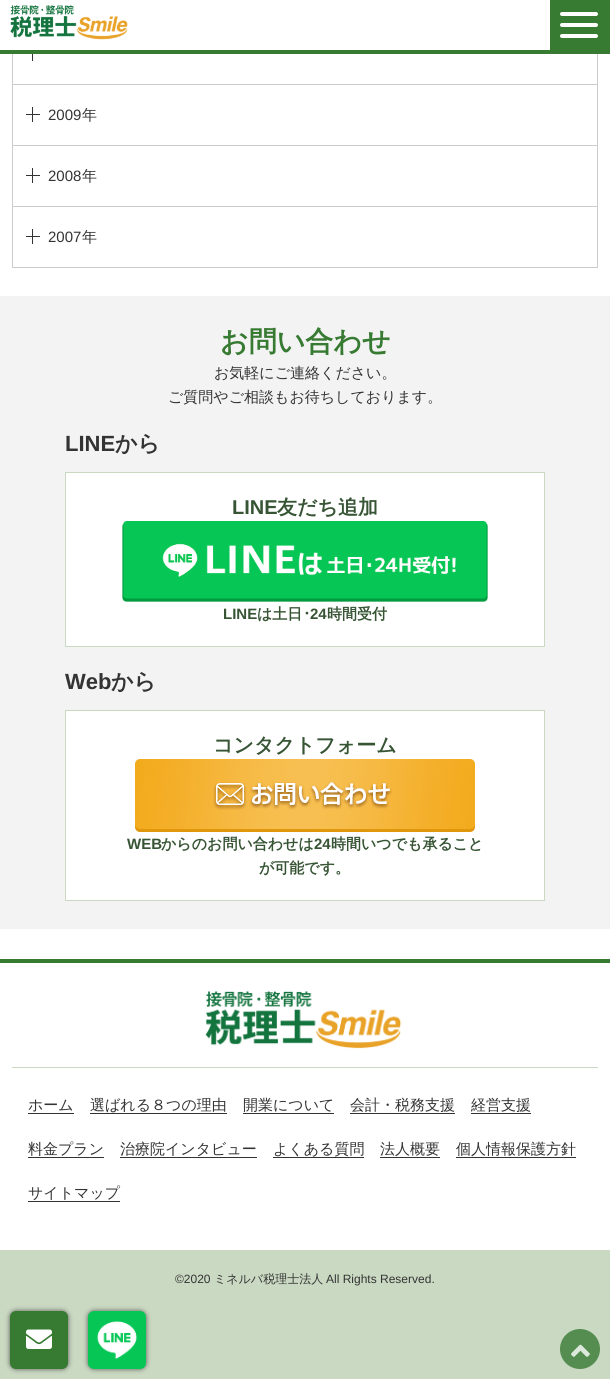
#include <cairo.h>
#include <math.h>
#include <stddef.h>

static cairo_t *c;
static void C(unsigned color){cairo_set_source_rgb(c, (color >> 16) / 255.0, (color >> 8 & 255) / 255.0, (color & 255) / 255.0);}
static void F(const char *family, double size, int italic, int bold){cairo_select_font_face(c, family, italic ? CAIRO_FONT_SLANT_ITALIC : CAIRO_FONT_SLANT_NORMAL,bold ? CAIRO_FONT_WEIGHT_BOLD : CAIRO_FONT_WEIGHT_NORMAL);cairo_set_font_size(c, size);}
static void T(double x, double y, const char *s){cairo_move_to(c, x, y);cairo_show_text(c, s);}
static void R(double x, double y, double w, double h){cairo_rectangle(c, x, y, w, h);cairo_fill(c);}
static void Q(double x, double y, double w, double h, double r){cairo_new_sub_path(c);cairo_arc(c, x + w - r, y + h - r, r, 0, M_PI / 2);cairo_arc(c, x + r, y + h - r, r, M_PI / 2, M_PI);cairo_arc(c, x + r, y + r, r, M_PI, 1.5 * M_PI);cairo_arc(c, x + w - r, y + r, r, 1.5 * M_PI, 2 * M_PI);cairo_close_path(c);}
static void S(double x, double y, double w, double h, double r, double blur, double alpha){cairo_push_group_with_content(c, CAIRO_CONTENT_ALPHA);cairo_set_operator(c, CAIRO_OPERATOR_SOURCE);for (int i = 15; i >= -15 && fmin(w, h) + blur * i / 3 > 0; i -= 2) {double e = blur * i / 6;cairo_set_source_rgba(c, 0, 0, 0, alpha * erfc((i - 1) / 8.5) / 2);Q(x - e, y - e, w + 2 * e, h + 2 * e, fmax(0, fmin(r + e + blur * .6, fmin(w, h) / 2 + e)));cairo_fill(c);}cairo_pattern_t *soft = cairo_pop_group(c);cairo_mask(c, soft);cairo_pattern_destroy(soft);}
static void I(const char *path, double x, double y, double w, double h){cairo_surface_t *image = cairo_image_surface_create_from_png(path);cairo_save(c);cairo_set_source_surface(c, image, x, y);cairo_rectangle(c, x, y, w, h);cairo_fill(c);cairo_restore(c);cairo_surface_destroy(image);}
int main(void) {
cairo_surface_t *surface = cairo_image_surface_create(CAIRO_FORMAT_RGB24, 610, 1379);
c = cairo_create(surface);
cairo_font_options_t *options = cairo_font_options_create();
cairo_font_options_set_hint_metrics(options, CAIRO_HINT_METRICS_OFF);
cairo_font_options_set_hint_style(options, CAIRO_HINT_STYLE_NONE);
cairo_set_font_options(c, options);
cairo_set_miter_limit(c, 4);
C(0xffffff);
cairo_paint(c);
cairo_rectangle(c,12.5,-.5,585,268);
C(0xcccccc);
cairo_set_line_width(c,1);
cairo_stroke(c);
C(0x333333);
R(32,46,1,15);
C(0xffffff);
R(12,0,21,50);
C(0x377a32);
R(0,50,610,4);
I("1.png",10,5,118,35);
R(550,0,60,50);
C(0xffffff);
Q(560,12,38,4,2);
cairo_fill(c);
Q(560,23,38,4,2);
cairo_fill(c);
Q(560,34,38,4,2);
cairo_fill(c);
C(0xcccccc);
R(13,84,584,1);
R(13,145,584,1);
C(0x333333);
R(26,114,14,1);
R(32,107,1,15);
F("Liberation Sans",15,0,0);
T(48,120,"2009");
F("WenQuanYi Zen Hei Medium",15,0,0);
T(82,120,"年");
C(0xcccccc);
R(13,206,584,1);
C(0x333333);
R(26,175,14,1);
R(32,168,1,15);
F("Liberation Sans",15,0,0);
T(48,181,"2008");
F("WenQuanYi Zen Hei Medium",15,0,0);
T(82,181,"年");
R(26,236,14,1);
R(32,229,1,15);
F("Liberation Sans",15,0,0);
T(48,242,"2007");
F("WenQuanYi Zen Hei Medium",15,0,0);
T(82,242,"年");
C(0xf3f3f3);
R(0,296,610,633);
F("WenQuanYi Zen Hei",28,0,1);
C(0x377a32);
T(220,351,"お問い合わせ");
F("WenQuanYi Zen Hei Medium",15,0,0);
C(0x333333);
T(214,378,"お気軽にご連絡ください。");
T(168,402,"ご質問やご相談もお待ちしております。");
F("Liberation Sans",22,0,1);
T(65,451,"LINE");
F("WenQuanYi Zen Hei",22,0,1);
T(115,451,"から");
C(0xffffff);
cairo_rectangle(c,65.5,472.5,479,174);
cairo_fill_preserve(c);
C(0xcad9c2);
cairo_stroke(c);
F("Liberation Sans",20,0,1);
C(0x375535);
T(232,514,"LINE");
F("WenQuanYi Zen Hei",20,0,1);
T(277,514,"友だち追加");
I("2.png",122,521,366,81);
F("Liberation Sans",15,0,1);
T(223,619,"LINE");
F("WenQuanYi Zen Hei",15,0,1);
T(257,619,"は土日");
F("IPAPGothic",15,0,1);
T(303,619,"･");
F("Liberation Sans",15,0,1);
T(310,619,"24");
F("WenQuanYi Zen Hei",15,0,1);
T(327,619,"時間受付");
F("Liberation Sans",22,0,1);
C(0x333333);
T(65,689,"Web");
F("WenQuanYi Zen Hei",22,0,1);
T(111,689,"から");
C(0xffffff);
cairo_rectangle(c,65.5,710.5,479,190);
cairo_fill_preserve(c);
C(0xcad9c2);
cairo_stroke(c);
F("WenQuanYi Zen Hei",20,0,1);
C(0x375535);
T(213,752,"コンタクトフォーム");
I("3.png",135,759,340,73);
F("Liberation Sans",15,0,1);
T(127,849,"WEB");
F("WenQuanYi Zen Hei",15,0,1);
T(161,849,"からのお問い合わせは");
F("Liberation Sans",15,0,1);
T(314,849,"24");
F("WenQuanYi Zen Hei",15,0,1);
T(331,849,"時間いつでも承ること");
T(259,873,"が可能です。");
C(0x377a32);
R(0,959,610,4);
C(0xcad9c2);
R(12,1067,586,1);
I("4.png",205,991,196,58);
F("WenQuanYi Zen Hei Medium",15,0,0);
C(0x333333);
T(28,1110,"ホーム");
R(28,1113,46,1);
T(90,1110,"選ばれる８つの理由");
R(90,1113,137,1);
T(243,1110,"開業について");
R(243,1113,91,1);
T(350,1110,"会計・税務支援");
R(350,1113,105,1);
T(471,1110,"経営支援");
R(471,1113,60,1);
T(28,1154,"料金プラン");
R(28,1157,76,1);
T(120,1154,"治療院インタビュー");
R(120,1157,137,1);
T(273,1154,"よくある質問");
R(273,1157,91,1);
T(380,1154,"法人概要");
R(380,1157,60,1);
T(456,1154,"個人情報保護方針");
R(456,1157,120,1);
T(28,1198,"サイトマップ");
R(28,1201,92,1);
C(0xcad9c2);
R(0,1250,610,129);
F("Liberation Sans",12,0,0);
C(0x333333);
T(175,1283,"©2020");
F("WenQuanYi Zen Hei Medium",12,0,0);
T(214,1283,"ミネルバ税理士法人");
F("Liberation Sans",12,0,0);
T(326,1283,"All Rights Reserved.");
C(0x555555);
S(10,1311,58,58,6,2.5,1);
C(0x377a32);
Q(10,1311,58,58,6);
cairo_fill(c);
I("5.png",26,1329,26,20);
C(0x555555);
S(88,1311,58,58,6,2.5,1);
C(0x06c655);
Q(88,1311,58,58,6);
cairo_fill(c);
I("6.png",97,1321,40,38);
C(0x548d4f);
cairo_arc(c,580,1349,20,0,2 * M_PI);
cairo_fill(c);
I("7.png",571,1344,19,13);
cairo_surface_write_to_png(surface, "o.png");
cairo_font_options_destroy(options);
cairo_destroy(c);
cairo_surface_destroy(surface);
return 0;
}
